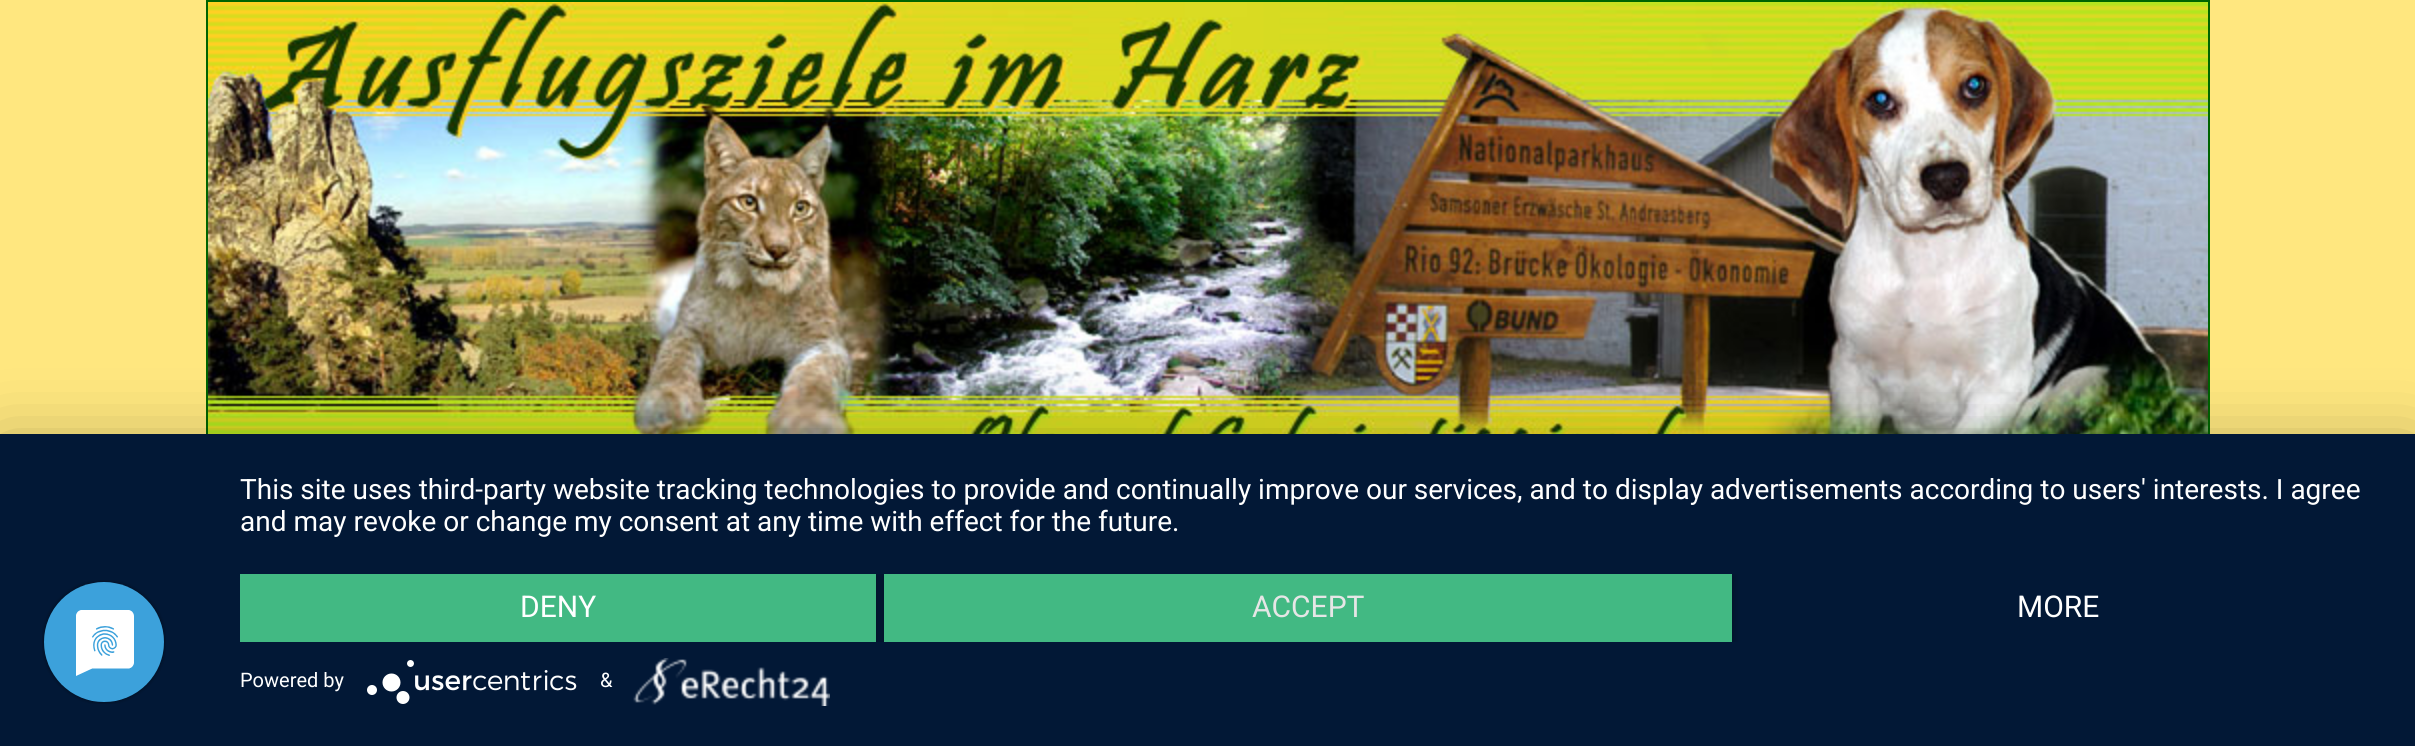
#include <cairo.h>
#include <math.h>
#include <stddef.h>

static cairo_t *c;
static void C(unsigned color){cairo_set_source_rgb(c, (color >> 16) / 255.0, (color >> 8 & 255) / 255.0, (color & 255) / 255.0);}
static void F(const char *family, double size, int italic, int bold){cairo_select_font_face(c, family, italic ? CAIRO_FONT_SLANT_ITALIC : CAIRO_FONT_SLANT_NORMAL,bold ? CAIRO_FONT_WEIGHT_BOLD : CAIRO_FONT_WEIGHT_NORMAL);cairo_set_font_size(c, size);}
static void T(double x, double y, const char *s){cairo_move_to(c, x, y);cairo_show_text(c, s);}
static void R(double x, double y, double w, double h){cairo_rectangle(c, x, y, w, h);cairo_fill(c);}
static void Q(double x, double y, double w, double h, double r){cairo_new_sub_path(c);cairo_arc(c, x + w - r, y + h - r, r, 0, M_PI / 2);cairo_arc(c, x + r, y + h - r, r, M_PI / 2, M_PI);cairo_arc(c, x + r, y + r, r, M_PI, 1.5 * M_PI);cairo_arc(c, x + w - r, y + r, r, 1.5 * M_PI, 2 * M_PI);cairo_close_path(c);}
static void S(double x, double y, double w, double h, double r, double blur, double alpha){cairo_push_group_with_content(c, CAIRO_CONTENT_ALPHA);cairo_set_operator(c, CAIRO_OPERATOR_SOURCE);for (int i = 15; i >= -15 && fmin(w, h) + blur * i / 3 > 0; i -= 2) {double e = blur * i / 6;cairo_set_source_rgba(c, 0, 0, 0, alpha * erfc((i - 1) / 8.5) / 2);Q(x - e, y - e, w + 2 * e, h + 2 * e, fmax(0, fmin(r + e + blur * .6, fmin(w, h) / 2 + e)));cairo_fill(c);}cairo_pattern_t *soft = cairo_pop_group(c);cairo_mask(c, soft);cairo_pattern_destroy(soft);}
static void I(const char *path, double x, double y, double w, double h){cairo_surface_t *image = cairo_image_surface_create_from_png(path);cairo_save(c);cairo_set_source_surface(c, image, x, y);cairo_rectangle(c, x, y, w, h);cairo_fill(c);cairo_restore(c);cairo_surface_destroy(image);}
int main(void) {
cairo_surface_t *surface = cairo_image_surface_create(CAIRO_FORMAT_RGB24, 2415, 746);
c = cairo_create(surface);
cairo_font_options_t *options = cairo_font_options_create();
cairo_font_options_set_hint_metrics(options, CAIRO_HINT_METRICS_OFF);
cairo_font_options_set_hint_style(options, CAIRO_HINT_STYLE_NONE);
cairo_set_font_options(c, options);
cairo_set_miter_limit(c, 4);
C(0xffe77f);
cairo_paint(c);
C(0x006400);
R(206,0,2004,2);
R(2208,0,2,434);
R(206,0,2,434);
I("1.png",208,2,2000,432);
C(0x000000);
S(0,446,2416,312,0,36,.3);
C(0x021836);
R(0,434,2415,312);
I("2.png",42,580,124,124);
F("Roboto",28,0,0);
C(0xffffff);
T(240,499,"This site uses third-party website tracking technologies to provide and continually improve our services, and to display advertisements according to users' interests. I agree");
T(240,531,"and may revoke or change my consent at any time with effect for the future.");
cairo_save(c);
cairo_rectangle(c,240,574,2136,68);
cairo_clip(c);
C(0x000000);
S(240,576,636,68,0,4,.4);
cairo_restore(c);
C(0x42b983);
R(240,574,636,68);
F("Roboto",30,0,0);
C(0xffffff);
T(520,617,"DENY");
cairo_save(c);
cairo_rectangle(c,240,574,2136,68);
cairo_clip(c);
C(0x000000);
S(884,576,848,68,0,4,.4);
cairo_restore(c);
C(0x42b983);
R(884,574,848,68);
C(0xe6e6e6);
T(1252,617,"ACCEPT");
C(0xffffff);
T(2017,617,"MORE");
F("Roboto",20,0,0);
T(240,687,"Powered by");
I("3.png",367,660,210,44);
T(600,687,"&");
I("4.png",633,658,197,48);
cairo_surface_write_to_png(surface, "o.png");
cairo_font_options_destroy(options);
cairo_destroy(c);
cairo_surface_destroy(surface);
return 0;
}
